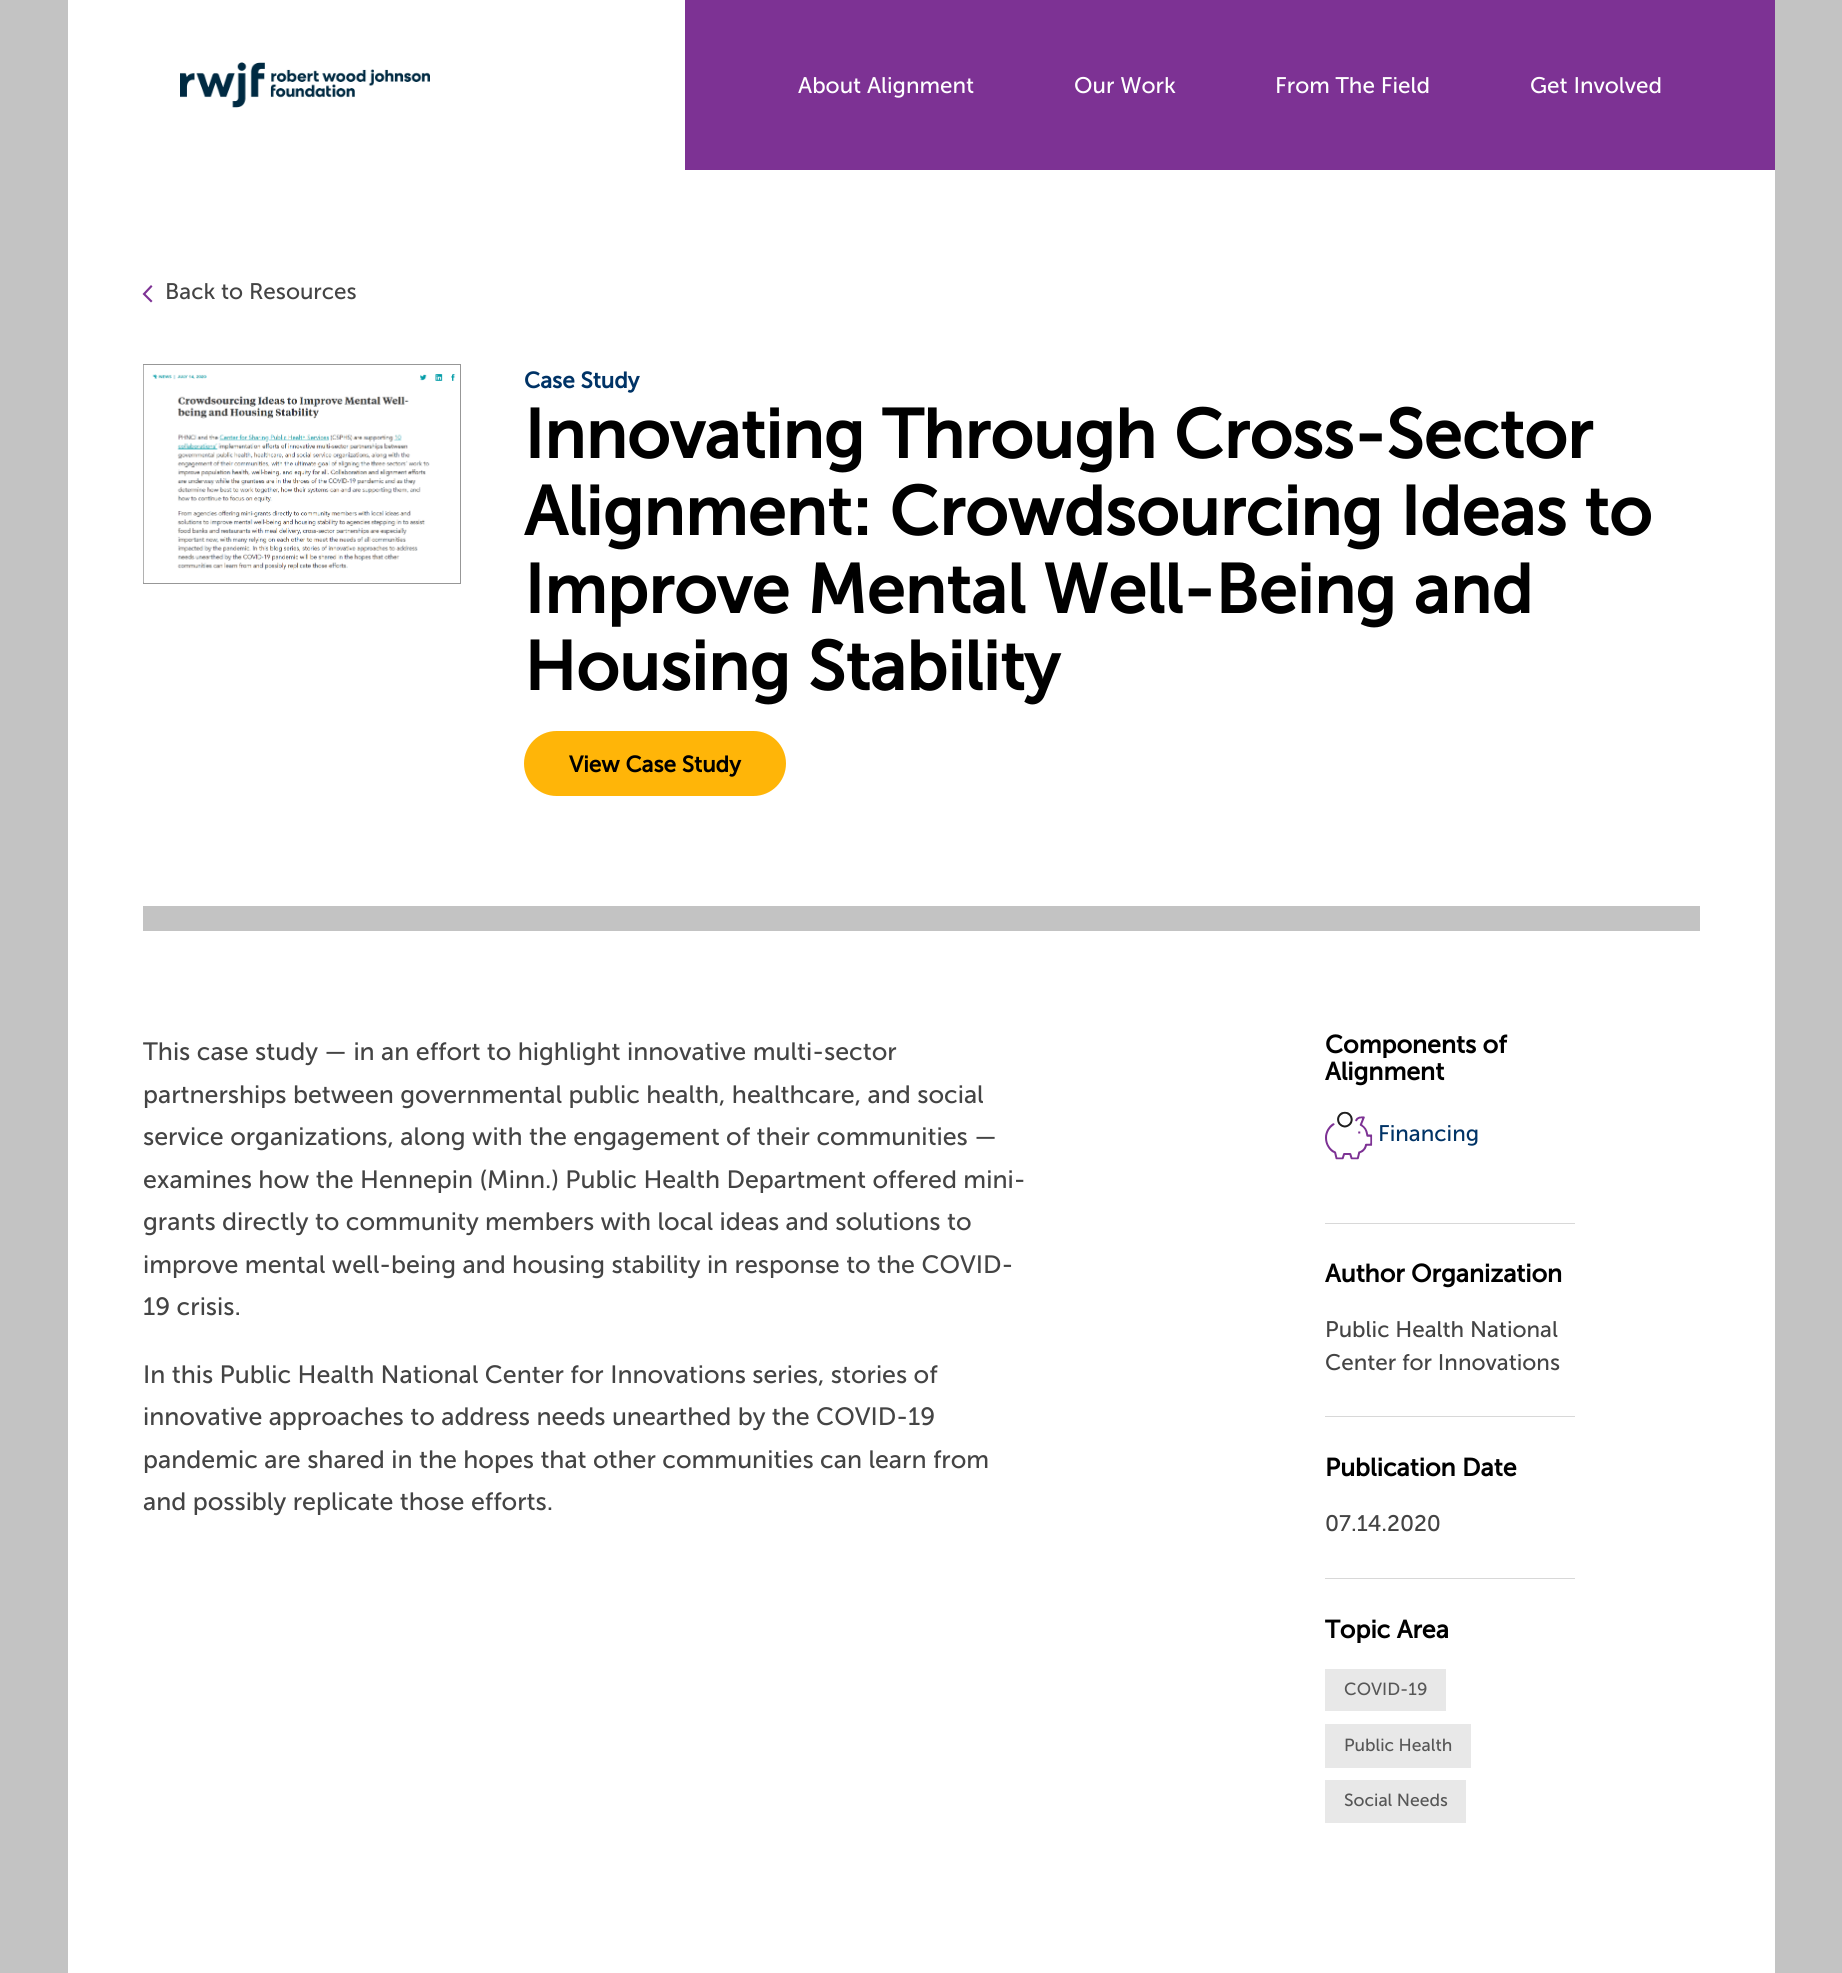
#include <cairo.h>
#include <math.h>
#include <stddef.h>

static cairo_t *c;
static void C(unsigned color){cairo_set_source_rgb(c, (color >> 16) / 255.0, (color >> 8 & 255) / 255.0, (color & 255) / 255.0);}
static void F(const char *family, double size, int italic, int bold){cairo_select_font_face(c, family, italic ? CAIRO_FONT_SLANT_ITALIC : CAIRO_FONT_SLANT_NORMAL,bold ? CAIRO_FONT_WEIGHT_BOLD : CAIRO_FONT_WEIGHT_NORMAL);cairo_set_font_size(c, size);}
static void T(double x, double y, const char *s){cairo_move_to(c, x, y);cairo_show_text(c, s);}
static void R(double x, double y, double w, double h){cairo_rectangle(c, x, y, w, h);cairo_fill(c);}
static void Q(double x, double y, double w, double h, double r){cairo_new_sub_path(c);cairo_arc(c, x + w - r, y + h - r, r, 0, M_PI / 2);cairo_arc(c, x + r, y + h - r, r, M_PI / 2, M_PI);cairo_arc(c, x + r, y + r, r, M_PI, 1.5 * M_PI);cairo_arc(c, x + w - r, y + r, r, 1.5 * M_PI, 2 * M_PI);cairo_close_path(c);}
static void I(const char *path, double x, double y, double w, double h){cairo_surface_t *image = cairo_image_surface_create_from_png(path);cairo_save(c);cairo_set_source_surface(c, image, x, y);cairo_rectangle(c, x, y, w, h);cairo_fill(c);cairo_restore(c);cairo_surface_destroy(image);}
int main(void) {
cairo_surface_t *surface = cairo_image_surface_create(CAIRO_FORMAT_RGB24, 1842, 1973);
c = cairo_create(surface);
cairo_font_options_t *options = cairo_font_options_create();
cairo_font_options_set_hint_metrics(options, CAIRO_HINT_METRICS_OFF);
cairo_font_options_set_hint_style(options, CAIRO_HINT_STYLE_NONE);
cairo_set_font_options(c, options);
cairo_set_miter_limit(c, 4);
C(0xc3c3c3);
cairo_paint(c);
C(0xffffff);
R(68,0,1707,1973);
I("1.png",180,62,250,46);
C(0x7d3294);
R(685,0,1090,170);
F("Museo Sans",22.5,0,0);
C(0xffffff);
T(798,93,"About Alignment");
T(1074,93,"Our Work");
T(1275,93,"From The Field");
T(1530,93,"Get Involved");
C(0x444444);
T(165,299,"Back to Resources");
C(0x7d3294);
cairo_new_path(c);
cairo_move_to(c,152.5,286.5);
cairo_line_to(c,151,285);
cairo_line_to(c,142.5,294);
cairo_line_to(c,151,302.5);
cairo_line_to(c,152.5,301);
cairo_line_to(c,145.5,294);
cairo_close_path(c);
cairo_fill(c);
cairo_rectangle(c,143.5,364.5,317,219);
C(0x979797);
cairo_set_line_width(c,1);
cairo_stroke(c);
I("2.png",143,365,313,218);
F("Museo Sans",22.5,0,1);
C(0x003366);
T(524,388,"Case Study");
F("Museo Sans",68.75,0,1);
C(0x000000);
T(524,458,"Innovating Through Cross-Sector");
T(524,535,"Alignment: Crowdsourcing Ideas to");
T(524,613,"Improve Mental Well-Being and");
T(524,690,"Housing Stability");
C(0xffb508);
Q(527,734,256,59,29.5);
cairo_fill_preserve(c);
cairo_set_line_width(c,6);
cairo_stroke(c);
F("Museo Sans",22.5,0,1);
C(0x000000);
T(569,772,"View Case Study");
C(0xc3c3c3);
R(143,906,1557,25);
F("Museo Sans",25,0,0);
C(0x444444);
T(143,1060,"This case study — in an effort to highlight innovative multi-sector");
T(143,1103,"partnerships between governmental public health, healthcare, and social");
T(143,1145,"service organizations, along with the engagement of their communities —");
T(143,1188,"examines how the Hennepin (Minn.) Public Health Department offered mini-");
T(143,1230,"grants directly to community members with local ideas and solutions to");
T(143,1273,"improve mental well-being and housing stability in response to the COVID-");
T(143,1315,"19 crisis.");
T(143,1383,"In this Public Health National Center for Innovations series, stories of");
T(143,1425,"innovative approaches to address needs unearthed by the COVID-19");
T(143,1468,"pandemic are shared in the hopes that other communities can learn from");
T(143,1510,"and possibly replicate those efforts.");
C(0xd8d8d8);
R(1325,1223,250,1);
F("Museo Sans",25,0,1);
C(0x000000);
T(1325,1053,"Components of");
T(1325,1080,"Alignment");
I("3.png",1325,1111,48,49);
F("Museo Sans",22.5,0,0);
C(0x003366);
T(1378,1141,"Financing");
C(0xd8d8d8);
R(1325,1416,250,1);
F("Museo Sans",25,0,1);
C(0x000000);
T(1325,1282,"Author Organization");
F("Museo Sans",22.5,0,0);
C(0x444444);
T(1325,1337,"Public Health National");
T(1325,1370,"Center for Innovations");
C(0xd8d8d8);
R(1325,1578,250,1);
F("Museo Sans",25,0,1);
C(0x000000);
T(1325,1476,"Publication Date");
F("Museo Sans",22.5,0,0);
C(0x444444);
T(1325,1531,"07.14.2020");
F("Museo Sans",25,0,1);
C(0x000000);
T(1325,1638,"Topic Area");
C(0xe8e8e8);
R(1325,1669,121,42);
F("Museo Sans",17.5,0,0);
C(0x575757);
T(1344,1695,"COVID-19");
C(0xe8e8e8);
R(1325,1724,146,44);
C(0x575757);
T(1344,1751,"Public Health");
C(0xe8e8e8);
R(1325,1780,141,43);
C(0x575757);
T(1344,1806,"Social Needs");
cairo_surface_write_to_png(surface, "o.png");
cairo_font_options_destroy(options);
cairo_destroy(c);
cairo_surface_destroy(surface);
return 0;
}
